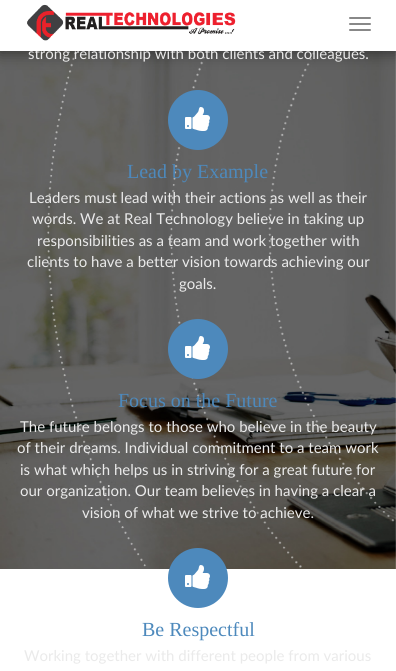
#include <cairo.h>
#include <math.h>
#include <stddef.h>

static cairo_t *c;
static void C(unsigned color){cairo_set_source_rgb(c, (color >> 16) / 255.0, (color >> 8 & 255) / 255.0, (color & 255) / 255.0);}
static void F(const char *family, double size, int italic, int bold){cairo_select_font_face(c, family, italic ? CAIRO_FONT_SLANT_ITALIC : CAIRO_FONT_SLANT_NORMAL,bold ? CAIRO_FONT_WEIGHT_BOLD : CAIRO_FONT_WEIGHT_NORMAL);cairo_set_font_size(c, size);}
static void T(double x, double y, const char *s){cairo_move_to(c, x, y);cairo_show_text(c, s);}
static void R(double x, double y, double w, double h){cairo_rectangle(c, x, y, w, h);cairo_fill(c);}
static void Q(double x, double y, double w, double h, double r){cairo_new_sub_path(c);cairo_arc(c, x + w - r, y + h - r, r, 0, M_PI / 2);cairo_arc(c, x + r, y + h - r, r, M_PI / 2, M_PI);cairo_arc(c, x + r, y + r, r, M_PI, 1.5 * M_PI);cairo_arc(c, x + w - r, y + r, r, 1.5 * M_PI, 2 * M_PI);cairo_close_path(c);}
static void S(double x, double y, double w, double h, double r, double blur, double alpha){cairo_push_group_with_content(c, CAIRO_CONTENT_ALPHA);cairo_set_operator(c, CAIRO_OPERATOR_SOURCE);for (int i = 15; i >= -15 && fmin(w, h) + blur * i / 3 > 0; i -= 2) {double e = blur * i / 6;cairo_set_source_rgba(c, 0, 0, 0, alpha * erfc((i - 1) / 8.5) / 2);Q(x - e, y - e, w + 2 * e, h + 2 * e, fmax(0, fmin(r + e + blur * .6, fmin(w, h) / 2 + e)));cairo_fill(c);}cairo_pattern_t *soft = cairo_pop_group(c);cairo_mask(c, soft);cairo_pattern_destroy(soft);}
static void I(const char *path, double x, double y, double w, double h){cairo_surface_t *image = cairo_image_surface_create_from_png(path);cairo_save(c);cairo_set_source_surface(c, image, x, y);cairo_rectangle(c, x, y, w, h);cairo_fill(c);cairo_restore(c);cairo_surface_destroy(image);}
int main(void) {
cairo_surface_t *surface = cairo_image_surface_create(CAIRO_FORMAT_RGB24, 396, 671);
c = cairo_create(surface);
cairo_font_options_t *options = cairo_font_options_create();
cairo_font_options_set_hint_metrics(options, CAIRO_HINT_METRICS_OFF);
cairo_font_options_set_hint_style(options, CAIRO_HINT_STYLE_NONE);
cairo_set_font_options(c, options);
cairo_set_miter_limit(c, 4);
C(0xffffff);
cairo_paint(c);
I("2.png",0,51,396,518);
C(0x000000);
S(0,2,396,51,0,7.5,.47);
F("Lato",15,0,0);
C(0xeaeaea);
T(28,59,"strong relationship with both clients and colleagues.");
C(0xffffff);
R(0,0,396,51);
I("1.png",27,4,209,37);
C(0x888888);
Q(349,17,22,2,1);
cairo_fill(c);
Q(349,23,22,2,1);
cairo_fill(c);
Q(349,29,22,2,1);
cairo_fill(c);
C(0x4d89bc);
cairo_arc(c,198,120,30,0,2 * M_PI);
cairo_fill(c);
I("3.png",185,107,25,24);
F("Liberation Serif",20,0,0);
T(127,178,"Lead by Example");
F("Lato",15,0,0);
C(0xeaeaea);
T(29,203,"Leaders must lead with their actions as well as their");
T(32,224,"words. We at Real Technology believe in taking up");
T(37,246,"responsibilities as a team and work together with");
T(27,267,"clients to have a better vision towards achieving our");
T(179,289,"goals.");
C(0x4d89bc);
cairo_new_path(c);
cairo_arc(c,198,349,30,0,2 * M_PI);
cairo_fill(c);
I("3.png",185,336,25,24);
F("Liberation Serif",20,0,0);
T(118,407,"Focus on the Future");
F("Lato",15,0,0);
C(0xeaeaea);
T(20,432,"The future belongs to those who believe in the beauty");
T(17,453,"of their dreams. Individual commitment to a team work");
T(20,475,"is what which helps us in striving for a great future for");
T(20,496,"our organization. Our team believes in having a clear a");
T(82,518,"vision of what we strive to achieve.");
C(0x4d89bc);
cairo_new_path(c);
cairo_arc(c,198,578,30,0,2 * M_PI);
cairo_fill(c);
I("3.png",185,565,25,24);
F("Liberation Serif",20,0,0);
T(142,636,"Be Respectful");
F("Lato",15,0,0);
C(0xeaeaea);
T(24,661,"Working together with different people from various");
cairo_surface_write_to_png(surface, "o.png");
cairo_font_options_destroy(options);
cairo_destroy(c);
cairo_surface_destroy(surface);
return 0;
}
